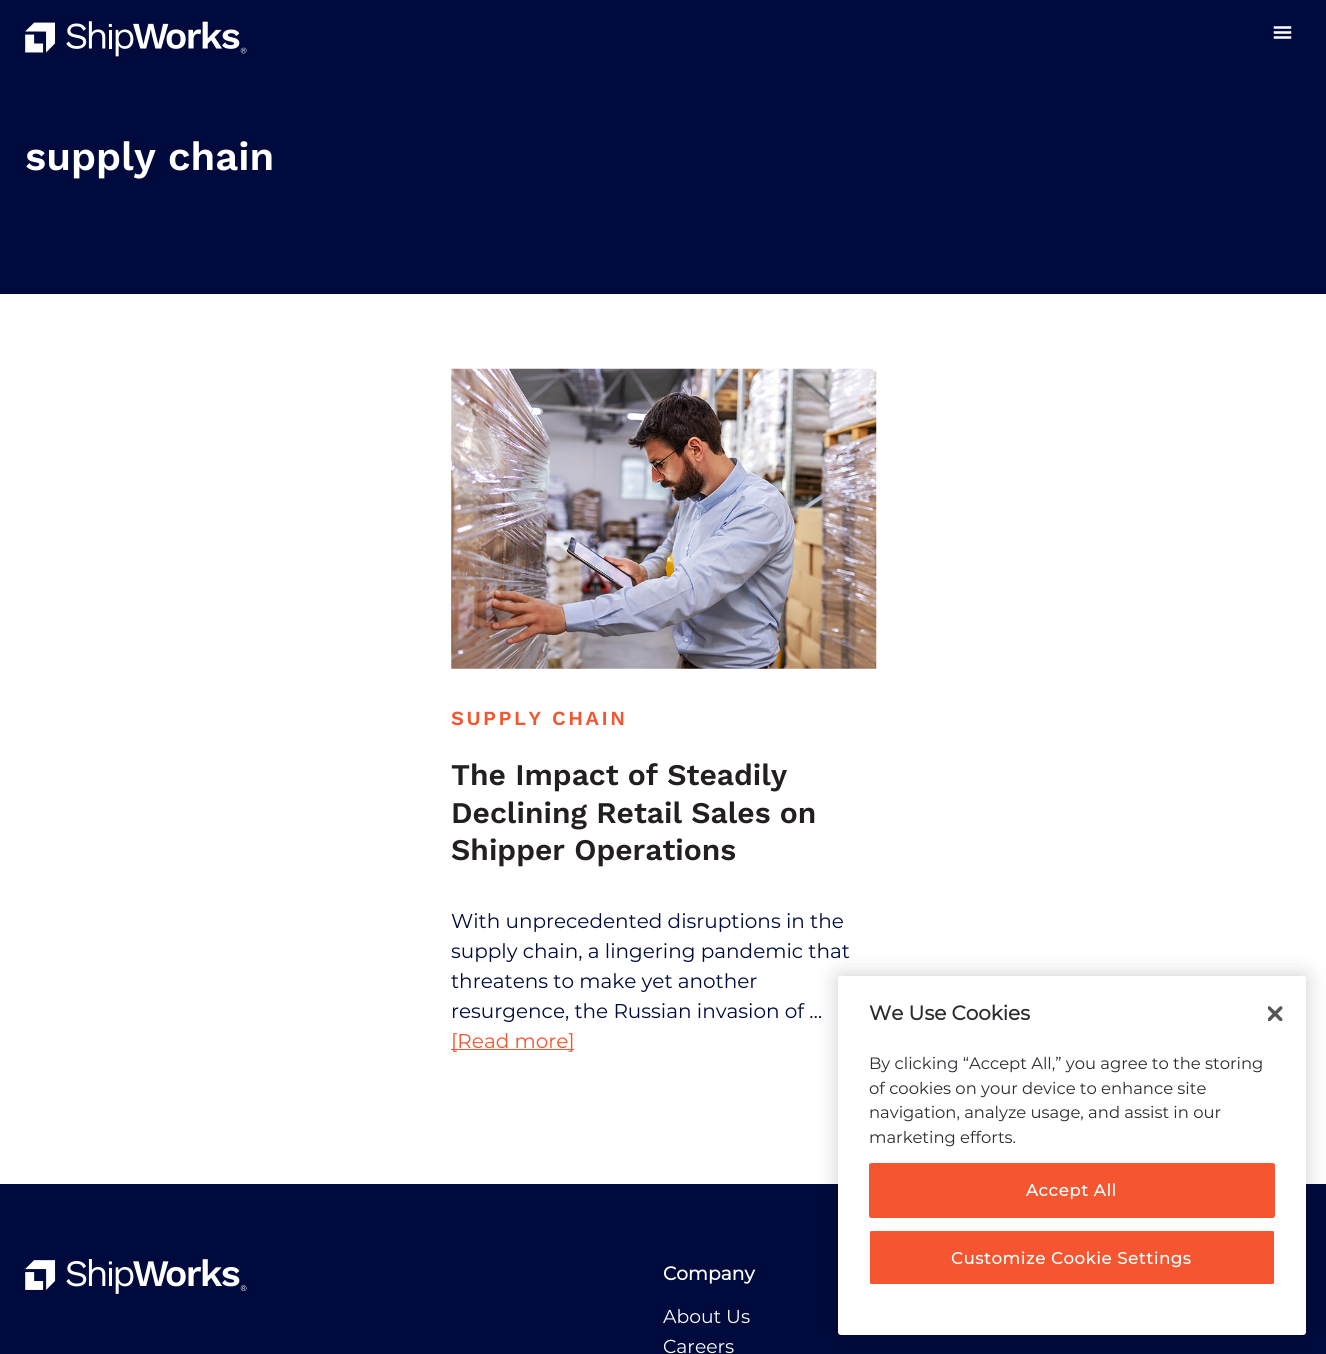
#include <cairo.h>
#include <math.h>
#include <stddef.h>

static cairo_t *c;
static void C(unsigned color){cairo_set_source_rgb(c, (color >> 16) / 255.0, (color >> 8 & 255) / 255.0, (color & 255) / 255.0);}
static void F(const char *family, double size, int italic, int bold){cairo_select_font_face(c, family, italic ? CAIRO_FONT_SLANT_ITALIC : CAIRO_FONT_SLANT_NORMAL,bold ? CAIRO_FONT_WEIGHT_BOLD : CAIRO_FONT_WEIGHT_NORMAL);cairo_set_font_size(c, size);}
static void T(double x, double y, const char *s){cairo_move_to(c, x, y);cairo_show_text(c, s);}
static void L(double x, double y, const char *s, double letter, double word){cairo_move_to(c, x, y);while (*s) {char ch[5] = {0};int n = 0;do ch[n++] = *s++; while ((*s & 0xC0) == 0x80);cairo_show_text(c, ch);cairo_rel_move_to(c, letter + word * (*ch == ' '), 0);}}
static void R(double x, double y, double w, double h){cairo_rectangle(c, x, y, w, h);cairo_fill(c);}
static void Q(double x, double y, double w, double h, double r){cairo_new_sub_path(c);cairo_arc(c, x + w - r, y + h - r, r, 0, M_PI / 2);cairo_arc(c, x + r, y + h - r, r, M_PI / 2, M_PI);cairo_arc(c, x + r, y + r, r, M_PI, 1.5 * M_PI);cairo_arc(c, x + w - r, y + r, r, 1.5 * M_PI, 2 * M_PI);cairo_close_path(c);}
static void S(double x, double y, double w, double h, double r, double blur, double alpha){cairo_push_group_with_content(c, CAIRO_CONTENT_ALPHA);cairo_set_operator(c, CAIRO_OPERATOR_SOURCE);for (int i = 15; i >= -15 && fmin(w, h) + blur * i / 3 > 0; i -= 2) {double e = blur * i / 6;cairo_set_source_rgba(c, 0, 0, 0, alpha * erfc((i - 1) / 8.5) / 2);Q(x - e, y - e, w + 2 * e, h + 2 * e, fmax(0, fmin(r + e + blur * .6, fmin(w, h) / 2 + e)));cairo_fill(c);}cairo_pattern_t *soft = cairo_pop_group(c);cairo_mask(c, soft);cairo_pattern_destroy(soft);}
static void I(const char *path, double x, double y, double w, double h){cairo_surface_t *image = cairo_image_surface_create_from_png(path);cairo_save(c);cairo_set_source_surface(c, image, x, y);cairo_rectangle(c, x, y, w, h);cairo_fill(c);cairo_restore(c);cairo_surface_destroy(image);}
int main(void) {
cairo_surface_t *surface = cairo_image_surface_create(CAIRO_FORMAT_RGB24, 1326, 1354);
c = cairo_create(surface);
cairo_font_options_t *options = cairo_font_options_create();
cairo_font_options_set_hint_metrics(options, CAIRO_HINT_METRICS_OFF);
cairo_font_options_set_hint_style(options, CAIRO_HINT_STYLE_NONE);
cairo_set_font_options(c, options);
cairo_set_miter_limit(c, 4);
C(0xffffff);
cairo_paint(c);
C(0x000a3d);
R(0,0,1326,294);
I("1.png",25,21,222,36);
I("2.png",1273,26,19,13);
F("Work Sans SemiBold",40,0,0);
C(0xffffff);
T(25,170,"supply chain");
I("3.png",451,368,426,301);
F("Work Sans SemiBold",20,0,0);
C(0xf5552f);
L(451,725,"SUPPLY CHAIN",2.5,0);
F("Work Sans SemiBold",30,0,0);
C(0x231f20);
T(451,785,"The Impact of Steadily");
T(451,823,"Declining Retail Sales on");
T(451,860,"Shipper Operations");
F("Montserrat Thin",20,0,0);
C(0x000a3d);
T(451,928,"With unprecedented disruptions in the");
T(451,958,"supply chain, a lingering pandemic that");
T(451,988,"threatens to make yet another");
T(451,1018,"resurgence, the Russian invasion of …");
C(0xf5552f);
R(451,1049,123,1);
T(451,1048,"[Read more]");
C(0x000a3d);
R(0,1184,1326,170);
I("4.png",25,1259,222,35);
F("Montserrat",18.75,0,1);
C(0xffffff);
T(663,1280,"Company");
F("Montserrat Thin",18.75,0,0);
T(663,1323,"About Us");
T(663,1353,"Careers");
C(0x000000);
S(838,976,468,359,3,11,.2);
C(0xffffff);
Q(838,976,468,359,3);
cairo_fill(c);
F("Montserrat",20,0,1);
C(0x2a2c31);
T(869,1020,"We Use Cookies");
F("Montserrat Thin",16.4,0,0);
T(869,1069,"By clicking “Accept All,” you agree to the storing");
T(869,1094,"of cookies on your device to enhance site");
T(869,1118,"navigation, analyze usage, and assist in our");
T(869,1143,"marketing efforts.");
I("5.png",1268,1006,15,15);
C(0xf5552f);
Q(869.5,1163.5,405,54,2);
cairo_fill_preserve(c);
cairo_set_line_width(c,1);
cairo_stroke(c);
F("Montserrat",16.4,0,1);
C(0xffffff);
L(1026,1196,"Accept All",.8,0);
C(0xf5552f);
Q(869.5,1230.5,405,54,2);
cairo_fill_preserve(c);
C(0xffffff);
cairo_stroke(c);
L(951,1264,"Customize Cookie Settings",.8,0);
cairo_surface_write_to_png(surface, "o.png");
cairo_font_options_destroy(options);
cairo_destroy(c);
cairo_surface_destroy(surface);
return 0;
}
